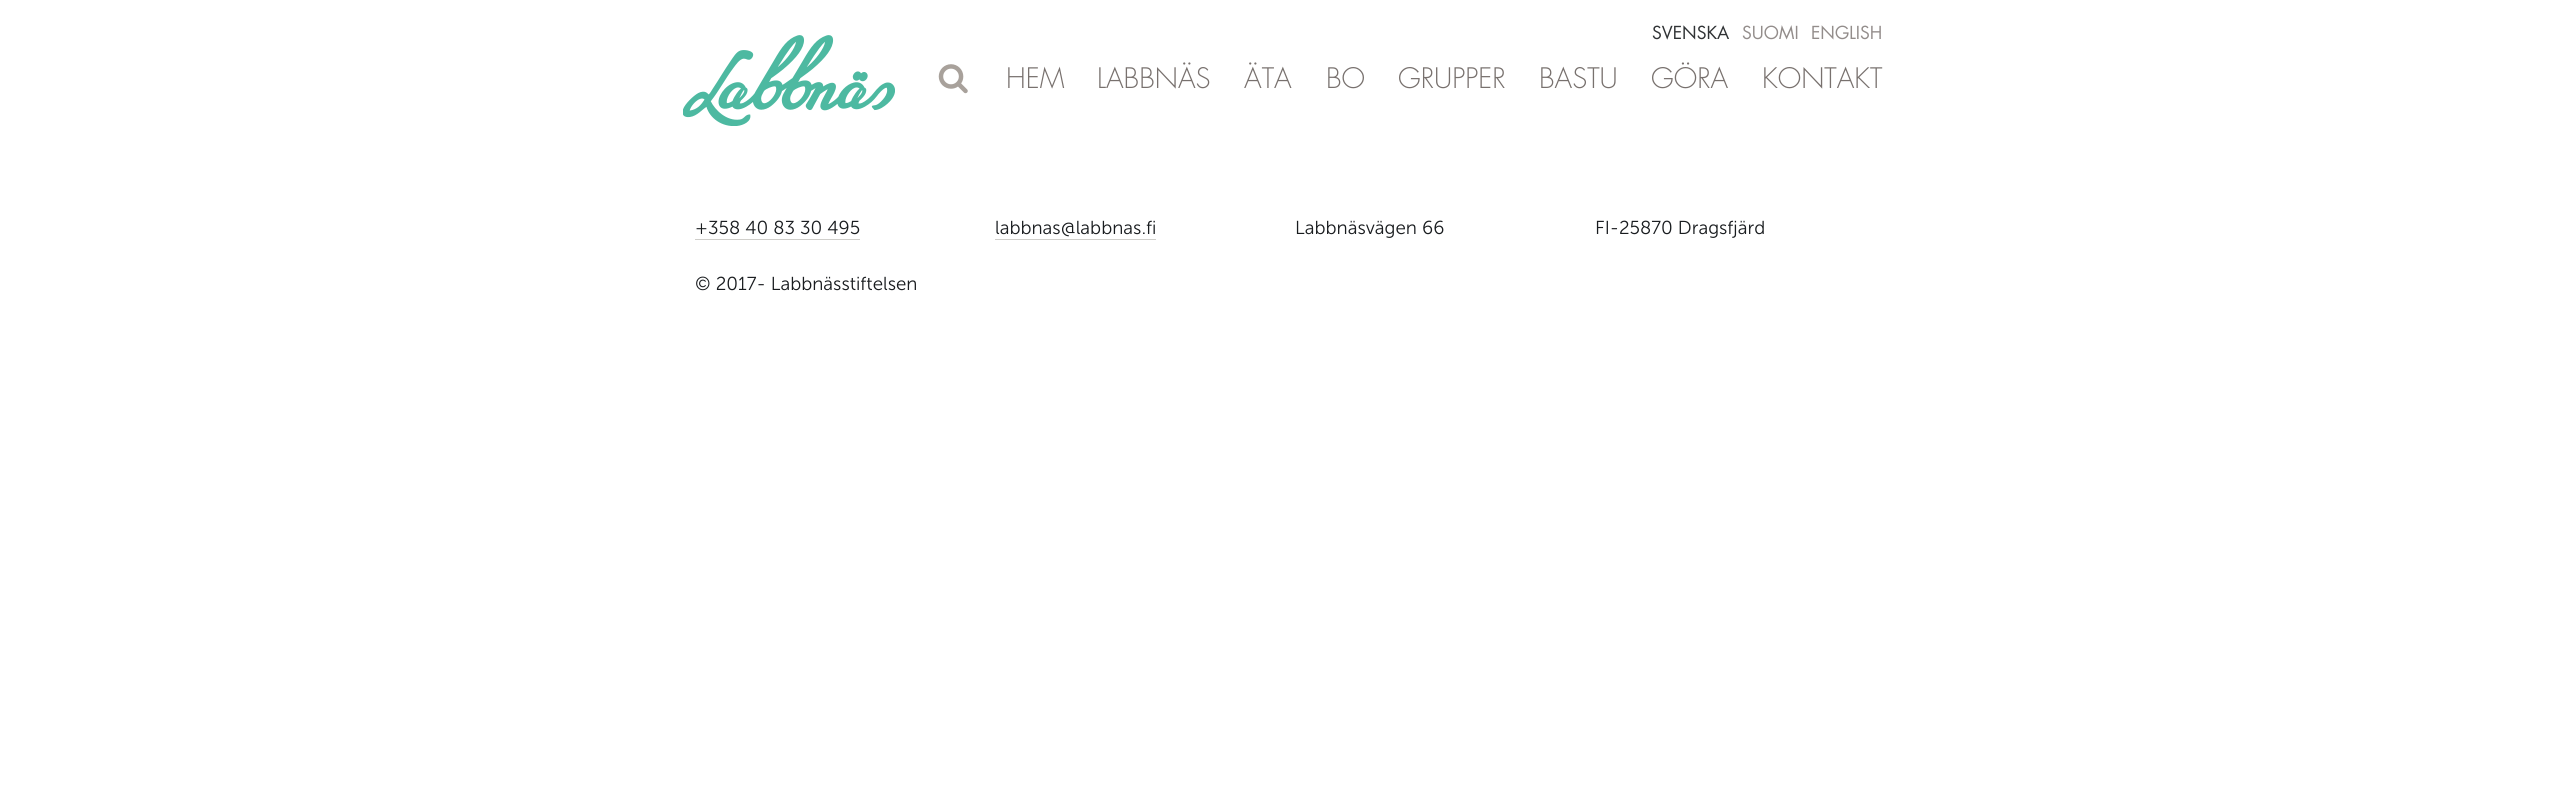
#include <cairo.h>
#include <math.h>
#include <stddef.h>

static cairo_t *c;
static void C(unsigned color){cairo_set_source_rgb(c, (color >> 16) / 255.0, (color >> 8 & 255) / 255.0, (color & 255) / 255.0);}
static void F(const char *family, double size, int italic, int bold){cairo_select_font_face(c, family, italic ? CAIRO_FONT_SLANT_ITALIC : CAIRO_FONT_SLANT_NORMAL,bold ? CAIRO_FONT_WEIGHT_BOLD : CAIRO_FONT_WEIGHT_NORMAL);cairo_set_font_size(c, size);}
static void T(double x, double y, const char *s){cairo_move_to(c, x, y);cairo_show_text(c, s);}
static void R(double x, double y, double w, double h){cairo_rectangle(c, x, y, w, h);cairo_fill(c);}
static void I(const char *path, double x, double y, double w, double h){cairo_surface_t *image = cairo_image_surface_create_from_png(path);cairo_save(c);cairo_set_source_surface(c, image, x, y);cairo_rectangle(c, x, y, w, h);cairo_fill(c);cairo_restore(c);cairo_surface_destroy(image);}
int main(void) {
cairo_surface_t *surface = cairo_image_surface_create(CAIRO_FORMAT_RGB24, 2565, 790);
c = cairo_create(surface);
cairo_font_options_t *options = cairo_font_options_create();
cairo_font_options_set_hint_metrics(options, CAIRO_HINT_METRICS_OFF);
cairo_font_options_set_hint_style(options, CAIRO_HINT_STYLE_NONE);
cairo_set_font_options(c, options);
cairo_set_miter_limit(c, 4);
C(0xffffff);
cairo_paint(c);
F("Futura",17.5,0,0);
C(0x303335);
T(1652,39,"SVENSKA");
C(0x938d8b);
T(1742,39,"SUOMI");
T(1811,39,"ENGLISH");
I("1.png",683,35,212,91);
I("2.png",938,64,30,30);
F("Futura Light",27.5,0,0);
C(0x78716e);
T(1006,88,"HEM");
T(1097,88,"LABBNÄS");
T(1244,88,"ÄTA");
T(1326,88,"BO");
T(1398,88,"GRUPPER");
T(1539,88,"BASTU");
T(1651,88,"GÖRA");
T(1762,88,"KONTAKT");
F("Museo Sans Light",18.75,0,0);
C(0x191c1f);
T(695,234,"+358 40 83 30 495");
C(0xcfceca);
R(695,239,165,1);
C(0x191c1f);
T(995,234,"labbnas@labbnas.fi");
C(0xcfceca);
R(995,239,161,1);
C(0x191c1f);
T(1295,234,"Labbnäsvägen 66");
T(1595,234,"FI-25870 Dragsfjärd");
T(695,290,"© 2017- Labbnässtiftelsen");
cairo_surface_write_to_png(surface, "o.png");
cairo_font_options_destroy(options);
cairo_destroy(c);
cairo_surface_destroy(surface);
return 0;
}
